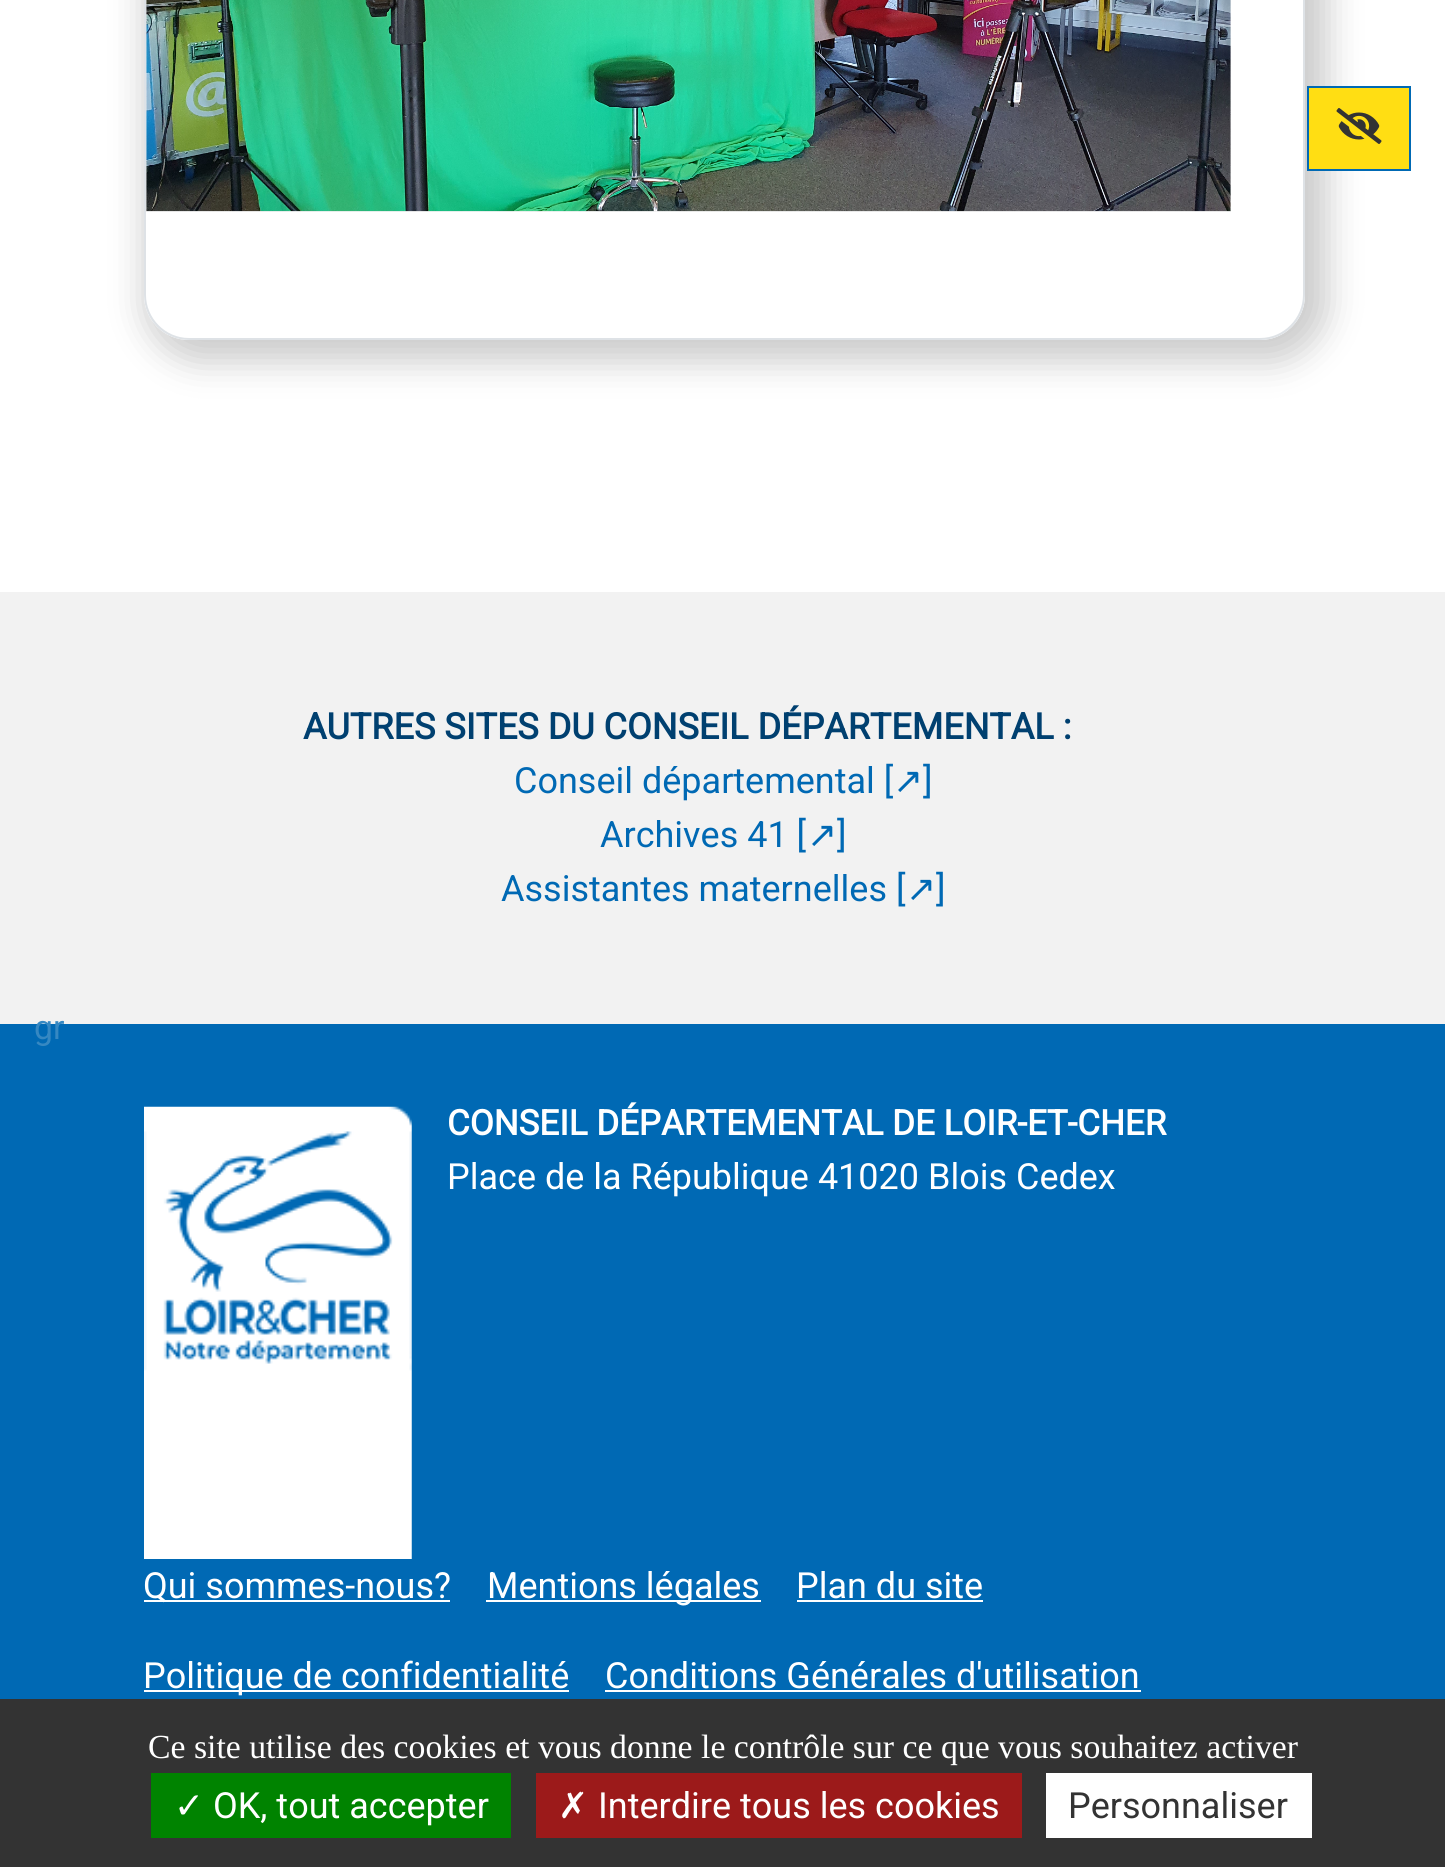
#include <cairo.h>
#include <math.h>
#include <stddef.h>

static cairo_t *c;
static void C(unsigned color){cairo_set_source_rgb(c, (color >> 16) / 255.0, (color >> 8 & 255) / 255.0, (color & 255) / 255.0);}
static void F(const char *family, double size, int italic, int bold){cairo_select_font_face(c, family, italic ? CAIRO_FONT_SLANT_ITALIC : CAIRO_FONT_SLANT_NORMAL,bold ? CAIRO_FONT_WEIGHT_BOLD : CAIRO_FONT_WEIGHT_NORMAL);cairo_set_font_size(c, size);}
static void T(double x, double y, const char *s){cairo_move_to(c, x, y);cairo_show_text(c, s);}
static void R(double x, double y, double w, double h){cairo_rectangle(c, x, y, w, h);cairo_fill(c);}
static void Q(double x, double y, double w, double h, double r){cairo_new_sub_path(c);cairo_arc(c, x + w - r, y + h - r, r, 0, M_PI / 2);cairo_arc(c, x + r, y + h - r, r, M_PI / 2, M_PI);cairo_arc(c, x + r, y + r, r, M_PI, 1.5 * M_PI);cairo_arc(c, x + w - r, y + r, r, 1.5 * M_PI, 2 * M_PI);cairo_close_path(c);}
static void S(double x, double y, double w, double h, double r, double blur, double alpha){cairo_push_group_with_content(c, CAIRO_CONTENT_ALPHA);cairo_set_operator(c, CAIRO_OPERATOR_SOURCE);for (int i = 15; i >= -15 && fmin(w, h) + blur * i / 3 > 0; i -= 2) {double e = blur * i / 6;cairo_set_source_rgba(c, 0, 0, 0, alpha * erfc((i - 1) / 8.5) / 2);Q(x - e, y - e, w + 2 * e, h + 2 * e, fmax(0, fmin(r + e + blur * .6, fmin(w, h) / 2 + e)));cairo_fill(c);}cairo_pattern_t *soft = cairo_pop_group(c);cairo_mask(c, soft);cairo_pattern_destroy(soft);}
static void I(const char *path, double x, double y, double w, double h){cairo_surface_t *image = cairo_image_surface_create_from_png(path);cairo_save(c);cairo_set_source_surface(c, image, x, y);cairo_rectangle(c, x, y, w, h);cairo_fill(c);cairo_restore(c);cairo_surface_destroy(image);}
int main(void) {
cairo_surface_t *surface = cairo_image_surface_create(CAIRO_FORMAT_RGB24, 1445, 1867);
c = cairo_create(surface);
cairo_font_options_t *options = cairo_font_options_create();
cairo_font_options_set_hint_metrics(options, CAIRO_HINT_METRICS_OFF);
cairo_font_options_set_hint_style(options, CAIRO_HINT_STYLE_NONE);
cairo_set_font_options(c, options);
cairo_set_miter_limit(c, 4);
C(0xffffff);
cairo_paint(c);
cairo_save(c);
cairo_set_fill_rule(c,CAIRO_FILL_RULE_EVEN_ODD);
cairo_new_path(c);
cairo_move_to(c,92,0);
cairo_line_to(c,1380,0);
cairo_line_to(c,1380,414);
cairo_line_to(c,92,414);
cairo_close_path(c);
cairo_move_to(c,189,-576);
cairo_line_to(c,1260,-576);
cairo_curve_to(c,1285,-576,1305,-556,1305,-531);
cairo_line_to(c,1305,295);
cairo_curve_to(c,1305,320,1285,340,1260,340);
cairo_line_to(c,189,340);
cairo_curve_to(c,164,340,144,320,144,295);
cairo_line_to(c,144,-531);
cairo_curve_to(c,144,-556,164,-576,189,-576);
cairo_close_path(c);
cairo_clip(c);
C(0xcccccc);
S(144,-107,1184,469,56,17,1);
cairo_restore(c);
C(0xdee2e6);
cairo_set_fill_rule(c,CAIRO_FILL_RULE_EVEN_ODD);
cairo_new_path(c);
cairo_move_to(c,189,-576);
cairo_line_to(c,1260,-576);
cairo_curve_to(c,1285,-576,1305,-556,1305,-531);
cairo_line_to(c,1305,295);
cairo_curve_to(c,1305,320,1285,340,1260,340);
cairo_line_to(c,189,340);
cairo_curve_to(c,164,340,144,320,144,295);
cairo_line_to(c,144,-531);
cairo_curve_to(c,144,-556,164,-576,189,-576);
cairo_close_path(c);
cairo_move_to(c,189,-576);
cairo_line_to(c,1260,-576);
cairo_curve_to(c,1284,-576,1303,-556,1303,-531);
cairo_line_to(c,1303,295);
cairo_curve_to(c,1303,318,1284,338,1260,338);
cairo_line_to(c,189,338);
cairo_curve_to(c,165,338,146,318,146,295);
cairo_line_to(c,146,-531);
cairo_curve_to(c,146,-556,165,-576,189,-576);
cairo_close_path(c);
cairo_fill(c);
C(0xf2f2f2);
R(146,0,1085,212);
I("1.png",146,0,1085,212);
R(0,592,1445,432);
F("Roboto",36,0,1);
C(0x004070);
T(303,739,"AUTRES SITES DU CONSEIL DÉPARTEMENTAL :");
F("Roboto",36,0,0);
C(0x0069b4);
T(514,793,"Conseil départemental [");
F("DejaVu Sans",36,0,0);
T(893,793,"↗");
F("Roboto",36,0,0);
T(923,793,"]");
T(600,847,"Archives 41 [");
F("DejaVu Sans",36,0,0);
T(807,847,"↗");
F("Roboto",36,0,0);
T(837,847,"]");
T(501,901,"Assistantes maternelles [");
F("DejaVu Sans",36,0,0);
T(906,901,"↗");
F("Roboto",36,0,0);
T(936,901,"]");
C(0xffde13);
cairo_rectangle(c,1308,87,102,83);
cairo_fill_preserve(c);
C(0x0069b4);
cairo_stroke(c);
I("2.png",1336,108,46,36);
R(0,1024,1445,675);
F("Roboto",33.75,0,0);
C(0x3688c2);
T(34,1039,"gr");
I("3.png",144,1106,268,453);
F("Roboto",34.9,0,1);
C(0xffffff);
T(447,1135,"CONSEIL DÉPARTEMENTAL DE LOIR-ET-CHER");
F("Roboto",36,0,0);
T(447,1189,"Place de la République 41020 Blois Cedex");
R(144,1600,306,2);
T(143,1598,"Qui sommes-nous?");
R(486,1600,275,2);
T(487,1598,"Mentions légales");
T(796,1598,"Plan du site");
R(797,1600,186,2);
R(144,1690,425,2);
T(143,1688,"Politique de confidentialité");
T(605,1688,"Conditions Générales d'utilisation");
R(605,1690,536,2);
C(0x333333);
R(0,1699,1445,168);
F("Liberation Serif",33.75,0,0);
C(0xffffff);
T(148,1758,"Ce site utilise des cookies et vous donne le contrôle sur ce que vous souhaitez activer");
C(0x008300);
R(151,1773,360,65);
F("DejaVu Sans",36,0,0);
C(0xffffff);
T(174,1818,"✓");
F("Roboto",36,0,0);
T(213,1818,"OK, tout accepter");
C(0x9c1a1a);
R(536,1773,486,65);
F("DejaVu Sans",36,0,0);
C(0xffffff);
T(558,1818,"✗");
F("Roboto",36,0,0);
T(598,1818,"Interdire tous les cookies");
R(1046,1773,266,65);
C(0x333333);
T(1068,1818,"Personnaliser");
cairo_surface_write_to_png(surface, "o.png");
cairo_font_options_destroy(options);
cairo_destroy(c);
cairo_surface_destroy(surface);
return 0;
}
